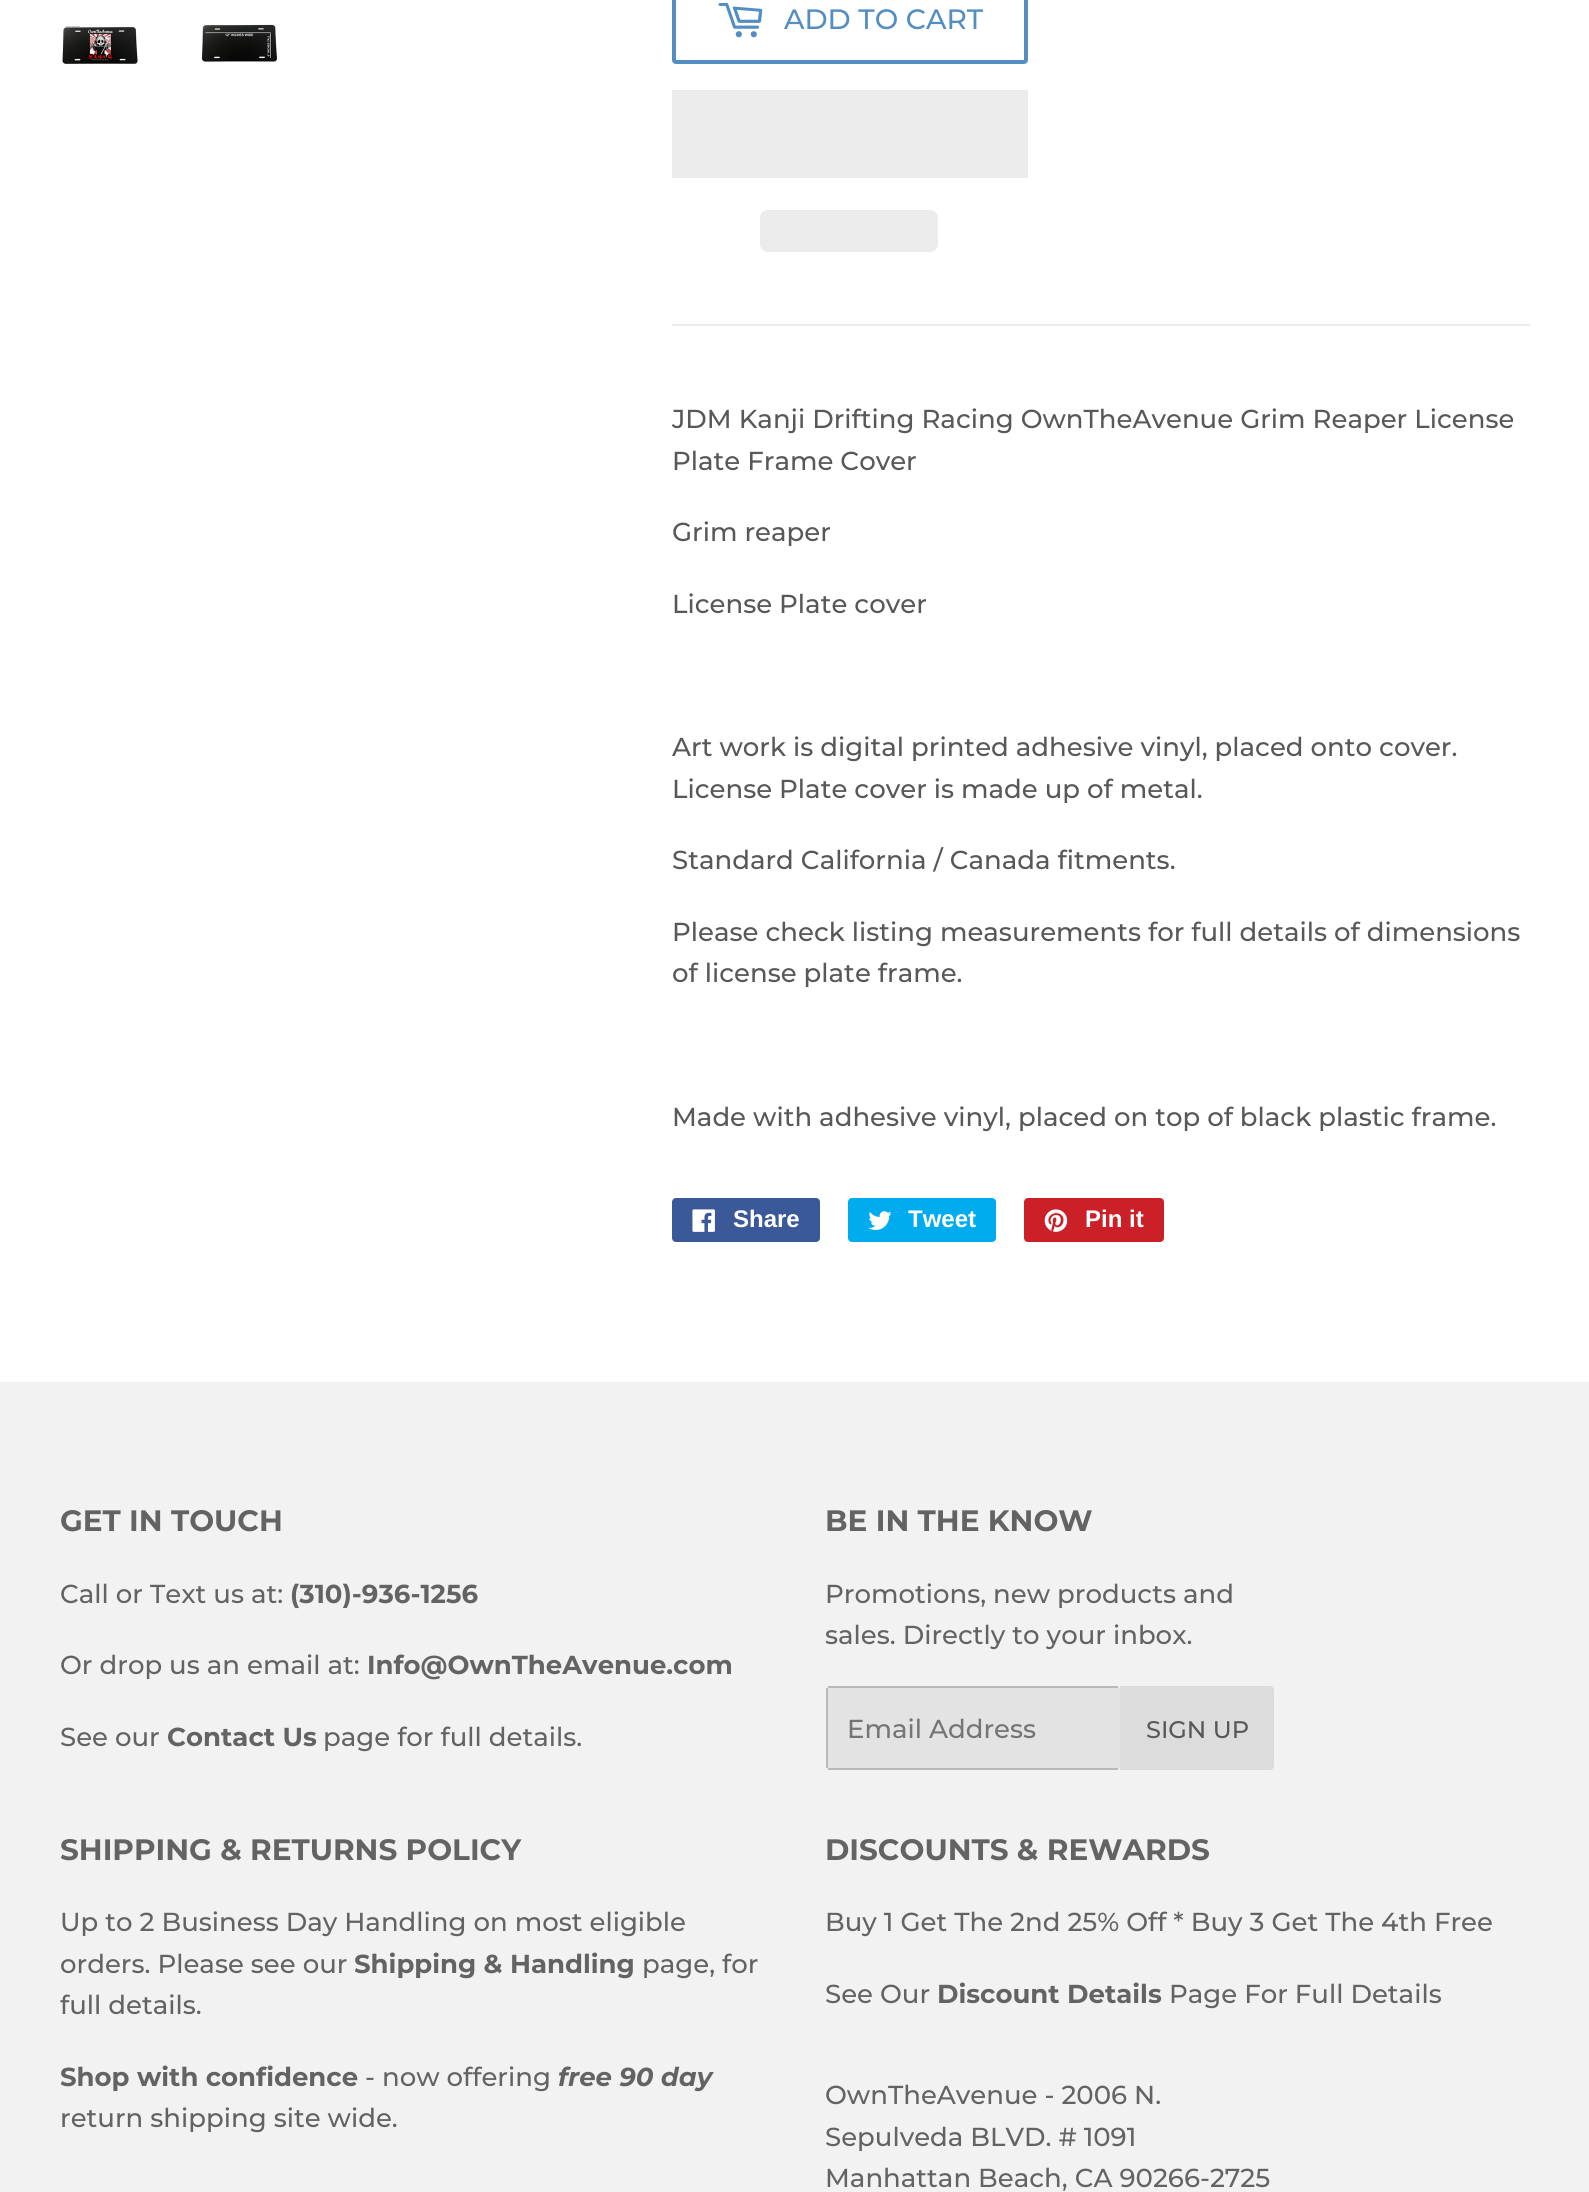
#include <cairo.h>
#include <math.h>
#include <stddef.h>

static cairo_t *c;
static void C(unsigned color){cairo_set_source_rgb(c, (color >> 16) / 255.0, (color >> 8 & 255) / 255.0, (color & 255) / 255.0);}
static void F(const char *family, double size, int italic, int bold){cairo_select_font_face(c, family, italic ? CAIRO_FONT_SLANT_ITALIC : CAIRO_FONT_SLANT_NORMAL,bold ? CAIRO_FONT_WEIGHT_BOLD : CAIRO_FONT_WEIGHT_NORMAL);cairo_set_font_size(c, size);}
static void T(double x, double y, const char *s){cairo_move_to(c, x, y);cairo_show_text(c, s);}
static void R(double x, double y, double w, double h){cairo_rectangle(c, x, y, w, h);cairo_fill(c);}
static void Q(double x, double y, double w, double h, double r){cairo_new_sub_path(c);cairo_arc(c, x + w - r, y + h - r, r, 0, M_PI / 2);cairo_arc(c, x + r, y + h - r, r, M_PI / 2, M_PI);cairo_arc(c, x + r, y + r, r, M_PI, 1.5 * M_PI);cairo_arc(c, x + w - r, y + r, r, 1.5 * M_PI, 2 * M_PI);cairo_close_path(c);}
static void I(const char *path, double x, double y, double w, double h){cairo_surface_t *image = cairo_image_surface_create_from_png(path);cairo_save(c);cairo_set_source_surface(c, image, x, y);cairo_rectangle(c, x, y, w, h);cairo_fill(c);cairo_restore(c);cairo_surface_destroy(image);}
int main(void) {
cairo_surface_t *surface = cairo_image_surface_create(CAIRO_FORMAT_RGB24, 1589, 2192);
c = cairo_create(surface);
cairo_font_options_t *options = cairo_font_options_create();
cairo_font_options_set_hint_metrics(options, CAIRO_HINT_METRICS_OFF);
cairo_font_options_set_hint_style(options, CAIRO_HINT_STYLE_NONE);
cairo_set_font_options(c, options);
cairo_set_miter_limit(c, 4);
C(0xffffff);
cairo_paint(c);
I("1.png",62,25,76,39);
I("2.png",201,24,77,38);
Q(674,-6,352,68,2);
C(0x528ec1);
cairo_set_line_width(c,4);
cairo_stroke(c);
I("3.png",718,3,45,35);
F("Montserrat Medium",28,0,0);
T(784,29,"ADD TO CART");
C(0xebebeb);
R(672,90,356,88);
Q(760,210,178,42,8);
cairo_fill(c);
C(0xececec);
R(672,324,858,2);
F("Montserrat Medium",26,0,0);
C(0x585858);
T(672,428,"JDM Kanji Drifting Racing OwnTheAvenue Grim Reaper License");
T(672,470,"Plate Frame Cover");
T(672,541,"Grim reaper");
T(672,613,"License Plate cover");
T(672,756,"Art work is digital printed adhesive vinyl, placed onto cover.");
T(672,798,"License Plate cover is made up of metal.");
T(672,869,"Standard California / Canada fitments.");
T(672,941,"Please check listing measurements for full details of dimensions");
T(672,982,"of license plate frame.");
T(672,1126,"Made with adhesive vinyl, placed on top of black plastic frame.");
C(0x3b5998);
Q(672,1198,148,44,4);
cairo_fill(c);
I("4.png",692,1209,23,23);
F("Liberation Sans",24,0,1);
C(0xffffff);
T(733,1227,"Share");
C(0x00aced);
Q(848,1198,148,44,4);
cairo_fill(c);
I("5.png",868,1211,24,19);
C(0xffffff);
T(908,1227,"Tweet");
C(0xcb2027);
Q(1024,1198,140,44,4);
cairo_fill(c);
I("6.png",1044,1209,24,23);
C(0xffffff);
T(1085,1227,"Pin it");
C(0xf2f2f2);
R(0,1382,1589,810);
F("Montserrat",29.5,0,1);
C(0x636363);
T(60,1531,"GET IN TOUCH");
F("Montserrat Medium",26,0,0);
T(60,1603,"Call or Text us at:");
F("Montserrat",26,0,1);
T(290,1603,"(310)-936-1256");
F("Montserrat Medium",26,0,0);
T(60,1674,"Or drop us an email at:");
F("Montserrat",26,0,1);
T(367,1674,"Info@OwnTheAvenue.com");
F("Montserrat Medium",26,0,0);
T(60,1746,"See our");
F("Montserrat",26,0,1);
T(167,1746,"Contact Us");
F("Montserrat Medium",26,0,0);
T(323,1746,"page for full details.");
F("Montserrat",29.5,0,1);
T(825,1531,"BE IN THE KNOW");
F("Montserrat Medium",26,0,0);
T(825,1603,"Promotions, new products and");
T(825,1644,"sales. Directly to your inbox.");
C(0xe3e3e3);
Q(826,1686,294,84,4);
cairo_fill(c);
C(0xb9b9b9);
R(828,1686,290,2);
R(828,1768,290,2);
R(826,1688,2,80);
C(0x757575);
T(847,1738,"Email Address");
C(0xdcdcdc);
cairo_new_path(c);
cairo_move_to(c,1120,1686);
cairo_line_to(c,1270,1686);
cairo_curve_to(c,1272,1686,1274,1688,1274,1690);
cairo_line_to(c,1274,1766);
cairo_curve_to(c,1274,1768,1272,1770,1270,1770);
cairo_line_to(c,1120,1770);
cairo_close_path(c);
cairo_fill(c);
F("Montserrat Medium",24,0,0);
C(0x585858);
T(1146,1738,"SIGN UP");
F("Montserrat",29.5,0,1);
C(0x636363);
T(60,1860,"SHIPPING & RETURNS POLICY");
F("Montserrat Medium",26,0,0);
T(60,1931,"Up to 2 Business Day Handling on most eligible");
T(60,1973,"orders. Please see our");
F("Montserrat",26,0,1);
T(354,1973,"Shipping & Handling");
F("Montserrat Medium",26,0,0);
T(642,1973,"page, for");
T(60,2014,"full details.");
F("Montserrat",26,0,1);
T(60,2086,"Shop with confidence");
F("Montserrat Medium",26,0,0);
T(365,2086,"- now offering");
F("Montserrat",26,1,1);
T(558,2086,"free 90 day");
F("Montserrat Medium",26,0,0);
T(60,2127,"return shipping site wide.");
F("Montserrat",29.5,0,1);
T(825,1860,"DISCOUNTS & REWARDS");
F("Montserrat Medium",26,0,0);
T(825,1931,"Buy 1 Get The 2nd 25% Off * Buy 3 Get The 4th Free");
T(825,2003,"See Our");
F("Montserrat",26,0,1);
T(937,2003,"Discount Details");
F("Montserrat Medium",26,0,0);
T(1169,2003,"Page For Full Details");
T(825,2104,"OwnTheAvenue - 2006 N.");
T(825,2146,"Sepulveda BLVD. # 1091");
T(825,2187,"Manhattan Beach, CA 90266-2725");
cairo_surface_write_to_png(surface, "o.png");
cairo_font_options_destroy(options);
cairo_destroy(c);
cairo_surface_destroy(surface);
return 0;
}
